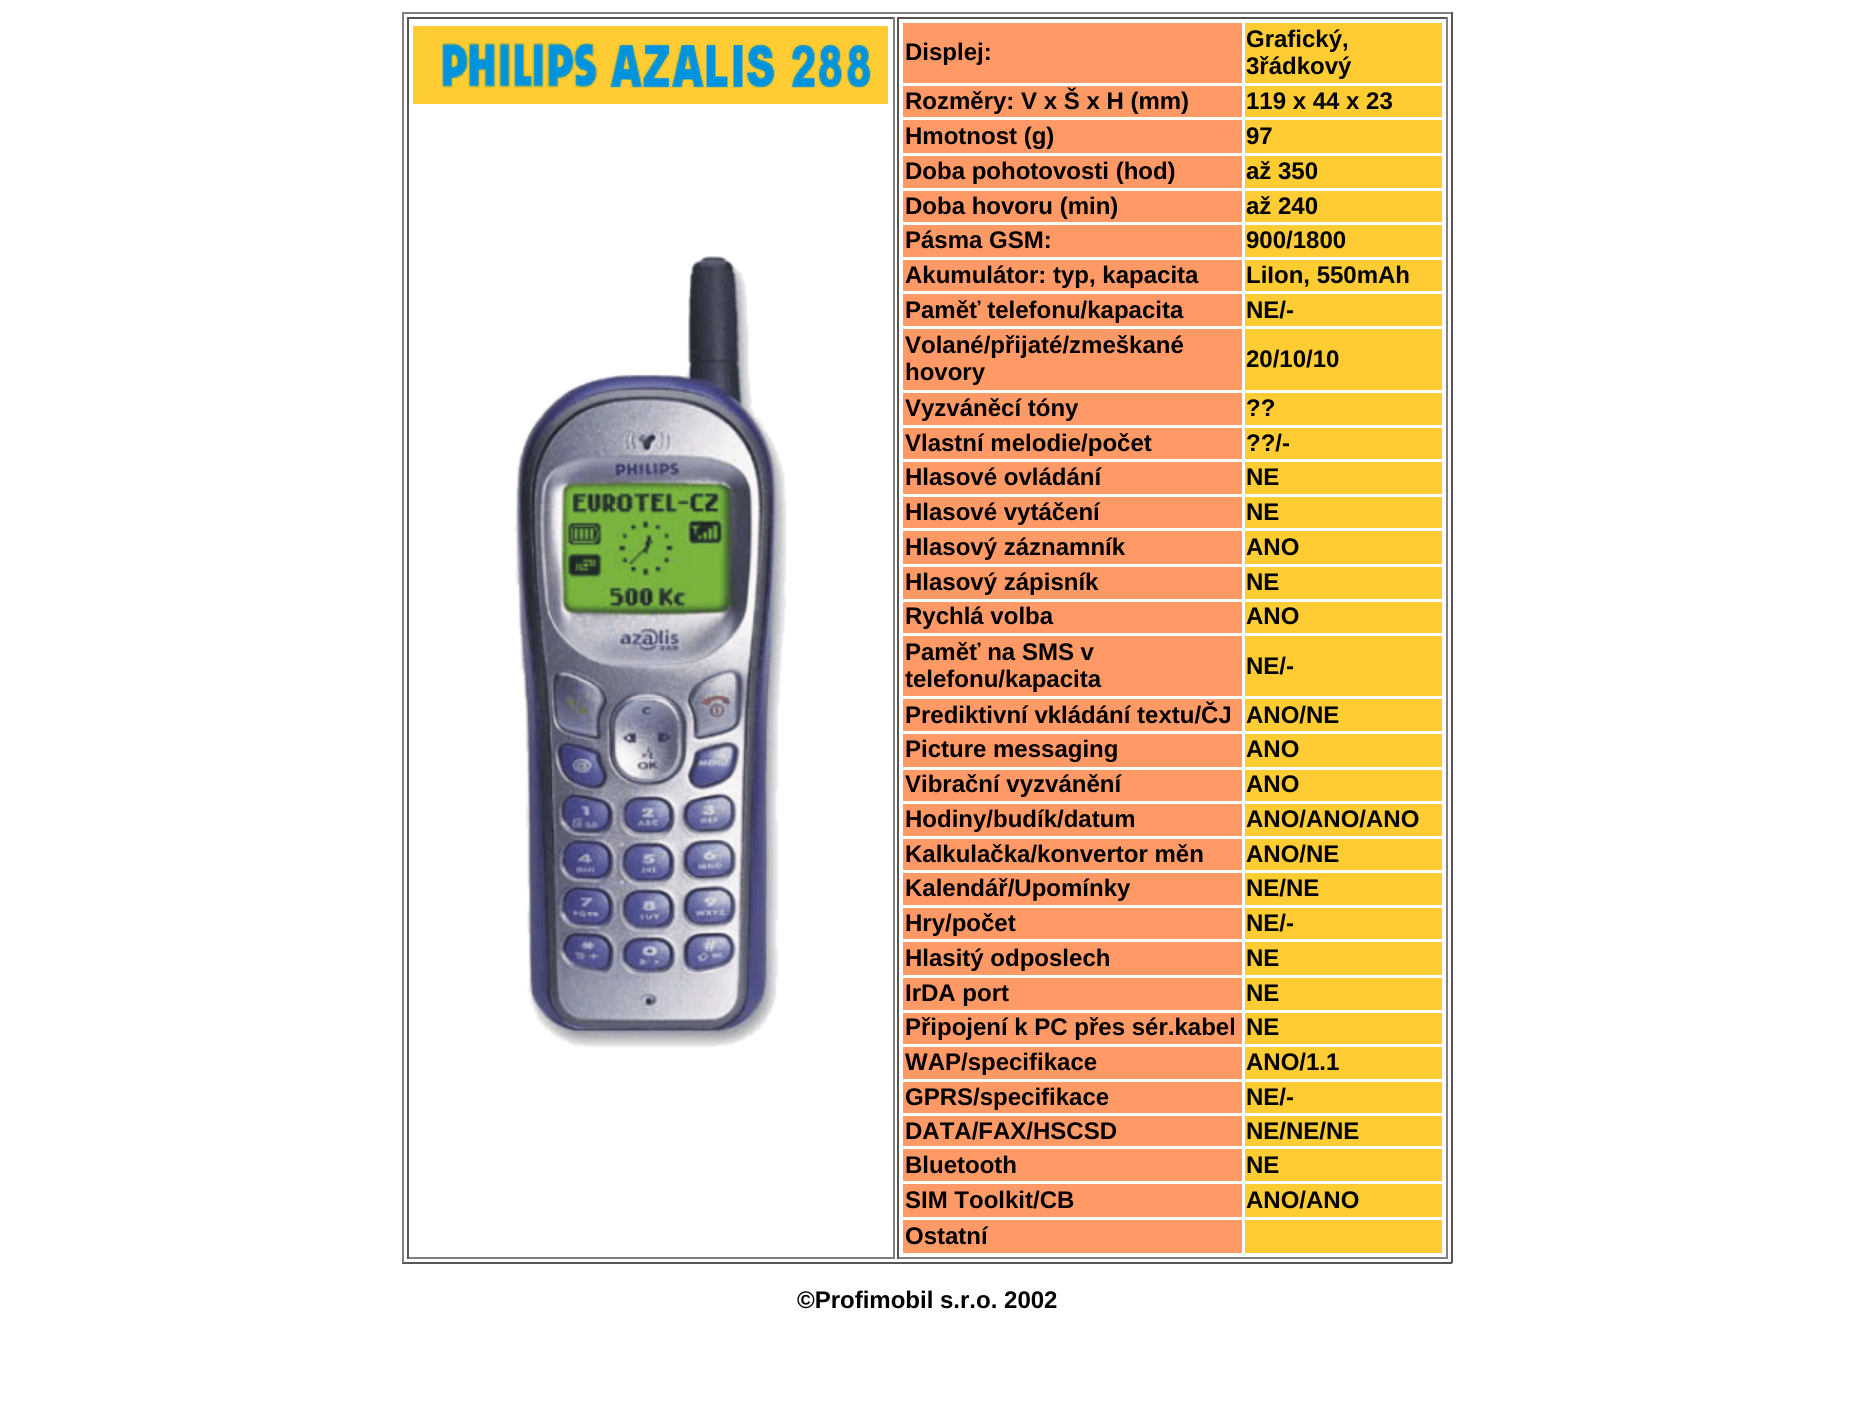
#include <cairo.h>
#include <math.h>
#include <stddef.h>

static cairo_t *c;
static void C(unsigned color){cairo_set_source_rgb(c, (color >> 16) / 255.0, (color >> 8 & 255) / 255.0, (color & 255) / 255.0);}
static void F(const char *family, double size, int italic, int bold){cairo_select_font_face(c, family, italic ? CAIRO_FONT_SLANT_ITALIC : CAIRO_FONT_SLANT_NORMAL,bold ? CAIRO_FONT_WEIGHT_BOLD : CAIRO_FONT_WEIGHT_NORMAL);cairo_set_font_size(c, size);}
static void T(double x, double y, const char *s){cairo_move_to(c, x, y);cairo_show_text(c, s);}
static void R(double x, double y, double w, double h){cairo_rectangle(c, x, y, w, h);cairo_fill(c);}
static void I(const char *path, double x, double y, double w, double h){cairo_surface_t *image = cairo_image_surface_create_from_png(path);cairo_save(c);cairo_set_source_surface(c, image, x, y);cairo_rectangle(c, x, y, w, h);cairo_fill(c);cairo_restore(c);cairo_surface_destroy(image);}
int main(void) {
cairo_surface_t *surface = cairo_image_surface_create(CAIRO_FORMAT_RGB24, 1854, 1425);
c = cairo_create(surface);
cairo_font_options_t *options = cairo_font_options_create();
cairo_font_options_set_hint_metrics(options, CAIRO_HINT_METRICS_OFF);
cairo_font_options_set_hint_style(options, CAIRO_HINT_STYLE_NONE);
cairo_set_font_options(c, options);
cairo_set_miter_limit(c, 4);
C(0xffffff);
cairo_paint(c);
C(0x808080);
R(402,12,1050,2);
C(0x555555);
R(1451,12,2,1251);
R(402,1262,1050,2);
C(0x808080);
R(402,12,2,1251);
C(0x555555);
R(407,17,487,2);
C(0x808080);
R(893,17,2,1242);
R(407,1257,487,2);
C(0x555555);
R(407,17,2,1242);
C(0xffcc33);
R(413,26,475,78);
I("1.png",426,30,450,70);
I("2.png",514,256,273,792);
C(0x555555);
R(897,17,551,2);
C(0x808080);
R(1446,17,2,1242);
R(897,1257,551,2);
C(0x555555);
R(897,17,2,1242);
C(0xff9966);
R(903,23,339,60);
F("Liberation Sans",24,0,1);
C(0x000000);
T(905,60,"Displej:");
C(0xffcc33);
R(1245,23,197,60);
C(0x000000);
T(1246,47,"Grafický,");
T(1246,74,"3řádkový");
C(0xff9966);
R(903,86,339,31);
C(0x000000);
T(905,109,"Rozměry: V x Š x H (mm)");
C(0xffcc33);
R(1245,86,197,31);
C(0x000000);
T(1246,109,"119 x 44 x 23");
C(0xff9966);
R(903,120,339,33);
C(0x000000);
T(905,144,"Hmotnost (g)");
C(0xffcc33);
R(1245,120,197,33);
C(0x000000);
T(1246,144,"97");
C(0xff9966);
R(903,156,339,32);
C(0x000000);
T(905,179,"Doba pohotovosti (hod)");
C(0xffcc33);
R(1245,156,197,32);
C(0x000000);
T(1246,179,"až 350");
C(0xff9966);
R(903,191,339,31);
C(0x000000);
T(905,214,"Doba hovoru (min)");
C(0xffcc33);
R(1245,191,197,31);
C(0x000000);
T(1246,214,"až 240");
C(0xff9966);
R(903,225,339,32);
C(0x000000);
T(905,248,"Pásma GSM:");
C(0xffcc33);
R(1245,225,197,32);
C(0x000000);
T(1246,248,"900/1800");
C(0xff9966);
R(903,260,339,31);
C(0x000000);
T(905,283,"Akumulátor: typ, kapacita");
C(0xffcc33);
R(1245,260,197,31);
C(0x000000);
T(1246,283,"LiIon, 550mAh");
C(0xff9966);
R(903,294,339,32);
C(0x000000);
T(905,318,"Paměť telefonu/kapacita");
C(0xffcc33);
R(1245,294,197,32);
C(0x000000);
T(1246,318,"NE/-");
C(0xff9966);
R(903,329,339,61);
C(0x000000);
T(905,353,"Volané/přijaté/zmeškané");
T(905,380,"hovory");
C(0xffcc33);
R(1245,329,197,61);
C(0x000000);
T(1246,367,"20/10/10");
C(0xff9966);
R(903,393,339,32);
C(0x000000);
T(905,416,"Vyzváněcí tóny");
C(0xffcc33);
R(1245,393,197,32);
C(0x000000);
T(1246,416,"?\077");
C(0xff9966);
R(903,428,339,31);
C(0x000000);
T(905,451,"Vlastní melodie/počet");
C(0xffcc33);
R(1245,428,197,31);
C(0x000000);
T(1246,451,"?\077/-");
C(0xff9966);
R(903,462,339,32);
C(0x000000);
T(905,485,"Hlasové ovládání");
C(0xffcc33);
R(1245,462,197,32);
C(0x000000);
T(1246,485,"NE");
C(0xff9966);
R(903,497,339,31);
C(0x000000);
T(905,520,"Hlasové vytáčení");
C(0xffcc33);
R(1245,497,197,31);
C(0x000000);
T(1246,520,"NE");
C(0xff9966);
R(903,531,339,33);
C(0x000000);
T(905,555,"Hlasový záznamník");
C(0xffcc33);
R(1245,531,197,33);
C(0x000000);
T(1246,555,"ANO");
C(0xff9966);
R(903,567,339,32);
C(0x000000);
T(905,590,"Hlasový zápisník");
C(0xffcc33);
R(1245,567,197,32);
C(0x000000);
T(1246,590,"NE");
C(0xff9966);
R(903,602,339,31);
C(0x000000);
T(905,624,"Rychlá volba");
C(0xffcc33);
R(1245,602,197,31);
C(0x000000);
T(1246,624,"ANO");
C(0xff9966);
R(903,636,339,60);
C(0x000000);
T(905,660,"Paměť na SMS v");
T(905,687,"telefonu/kapacita");
C(0xffcc33);
R(1245,636,197,60);
C(0x000000);
T(1246,674,"NE/-");
C(0xff9966);
R(903,699,339,32);
C(0x000000);
T(905,723,"Prediktivní vkládání textu/ČJ");
C(0xffcc33);
R(1245,699,197,32);
C(0x000000);
T(1246,723,"ANO/NE");
C(0xff9966);
R(903,734,339,33);
C(0x000000);
T(905,757,"Picture messaging");
C(0xffcc33);
R(1245,734,197,33);
C(0x000000);
T(1246,757,"ANO");
C(0xff9966);
R(903,770,339,31);
C(0x000000);
T(905,792,"Vibrační vyzvánění");
C(0xffcc33);
R(1245,770,197,31);
C(0x000000);
T(1246,792,"ANO");
C(0xff9966);
R(903,804,339,32);
C(0x000000);
T(905,827,"Hodiny/budík/datum");
C(0xffcc33);
R(1245,804,197,32);
C(0x000000);
T(1246,827,"ANO/ANO/ANO");
C(0xff9966);
R(903,839,339,31);
C(0x000000);
T(905,862,"Kalkulačka/konvertor měn");
C(0xffcc33);
R(1245,839,197,31);
C(0x000000);
T(1246,862,"ANO/NE");
C(0xff9966);
R(903,873,339,32);
C(0x000000);
T(905,896,"Kalendář/Upomínky");
C(0xffcc33);
R(1245,873,197,32);
C(0x000000);
T(1246,896,"NE/NE");
C(0xff9966);
R(903,908,339,31);
C(0x000000);
T(905,931,"Hry/počet");
C(0xffcc33);
R(1245,908,197,31);
C(0x000000);
T(1246,931,"NE/-");
C(0xff9966);
R(903,942,339,33);
C(0x000000);
T(905,966,"Hlasitý odposlech");
C(0xffcc33);
R(1245,942,197,33);
C(0x000000);
T(1246,966,"NE");
C(0xff9966);
R(903,978,339,32);
C(0x000000);
T(905,1001,"IrDA port");
C(0xffcc33);
R(1245,978,197,32);
C(0x000000);
T(1246,1001,"NE");
C(0xff9966);
R(903,1013,339,31);
C(0x000000);
T(905,1035,"Připojení k PC přes sér.kabel");
C(0xffcc33);
R(1245,1013,197,31);
C(0x000000);
T(1246,1035,"NE");
C(0xff9966);
R(903,1047,339,32);
C(0x000000);
T(905,1070,"WAP/specifikace");
C(0xffcc33);
R(1245,1047,197,32);
C(0x000000);
T(1246,1070,"ANO/1.1");
C(0xff9966);
R(903,1082,339,31);
C(0x000000);
T(905,1105,"GPRS/specifikace");
C(0xffcc33);
R(1245,1082,197,31);
C(0x000000);
T(1246,1105,"NE/-");
C(0xff9966);
R(903,1116,339,30);
C(0x000000);
T(905,1139,"DATA/FAX/HSCSD");
C(0xffcc33);
R(1245,1116,197,30);
C(0x000000);
T(1246,1139,"NE/NE/NE");
C(0xff9966);
R(903,1149,339,32);
C(0x000000);
T(905,1173,"Bluetooth");
C(0xffcc33);
R(1245,1149,197,32);
C(0x000000);
T(1246,1173,"NE");
C(0xff9966);
R(903,1184,339,33);
C(0x000000);
T(905,1208,"SIM Toolkit/CB");
C(0xffcc33);
R(1245,1184,197,33);
C(0x000000);
T(1246,1208,"ANO/ANO");
C(0xff9966);
R(903,1220,339,33);
C(0x000000);
T(905,1244,"Ostatní");
C(0xffcc33);
R(1245,1220,197,33);
C(0x000000);
T(797,1308,"©Profimobil s.r.o. 2002");
cairo_surface_write_to_png(surface, "o.png");
cairo_font_options_destroy(options);
cairo_destroy(c);
cairo_surface_destroy(surface);
return 0;
}
